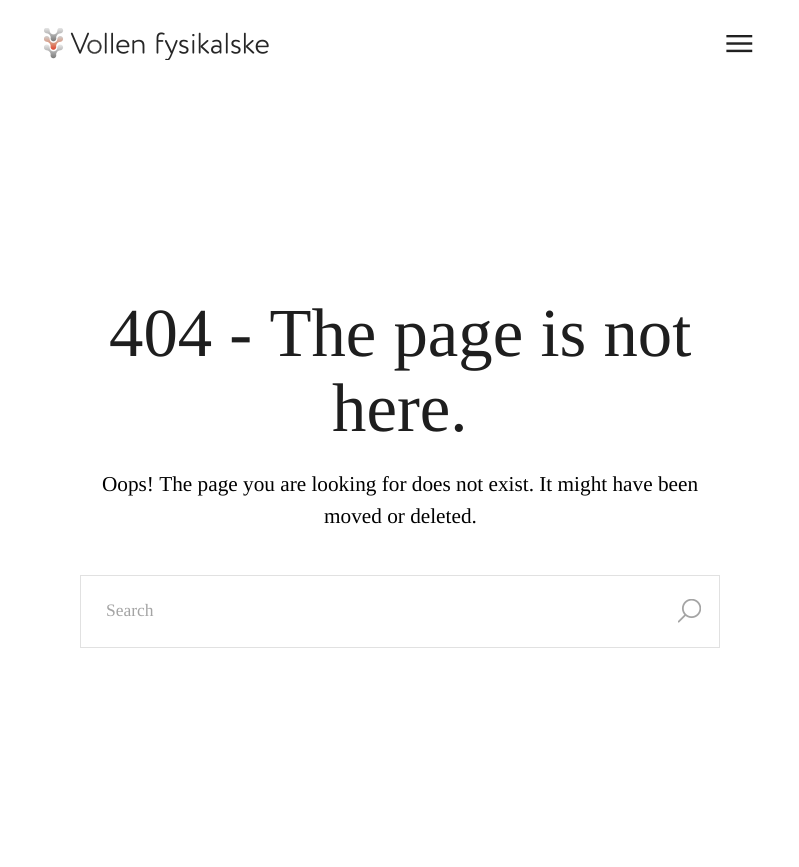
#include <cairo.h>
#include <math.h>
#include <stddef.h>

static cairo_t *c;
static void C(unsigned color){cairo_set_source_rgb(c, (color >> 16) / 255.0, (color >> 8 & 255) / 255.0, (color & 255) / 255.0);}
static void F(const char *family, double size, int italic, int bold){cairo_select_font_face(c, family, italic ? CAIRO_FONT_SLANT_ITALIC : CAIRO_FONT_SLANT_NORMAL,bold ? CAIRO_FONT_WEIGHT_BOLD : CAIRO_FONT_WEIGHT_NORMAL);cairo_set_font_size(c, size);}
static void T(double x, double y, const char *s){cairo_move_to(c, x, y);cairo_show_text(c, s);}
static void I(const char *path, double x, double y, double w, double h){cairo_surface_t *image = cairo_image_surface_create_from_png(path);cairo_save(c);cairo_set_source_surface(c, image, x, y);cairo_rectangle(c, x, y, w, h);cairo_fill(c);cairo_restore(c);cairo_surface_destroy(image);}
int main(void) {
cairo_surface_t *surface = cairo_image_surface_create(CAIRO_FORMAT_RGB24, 799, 867);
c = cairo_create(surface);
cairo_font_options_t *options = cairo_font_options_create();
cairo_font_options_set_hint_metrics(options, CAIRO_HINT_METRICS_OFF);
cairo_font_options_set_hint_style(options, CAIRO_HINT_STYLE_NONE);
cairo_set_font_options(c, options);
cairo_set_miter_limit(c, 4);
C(0xffffff);
cairo_paint(c);
I("1.png",44,28,225,32);
I("2.png",726,35,27,18);
F("Liberation Serif",68.75,0,0);
C(0x1e1e1e);
T(109,356,"404 - The page is not");
T(332,431,"here.");
F("Liberation Serif",21.25,0,0);
C(0x000000);
T(102,491,"Oops! The page you are looking for does not exist. It might have been");
T(324,523,"moved or deleted.");
cairo_rectangle(c,80.5,575.5,639,72);
C(0xe1e1e1);
cairo_set_line_width(c,1);
cairo_stroke(c);
F("Liberation Serif",17.5,0,0);
C(0xa4a4a4);
T(106,616,"Search");
I("3.png",678,599,23,24);
cairo_surface_write_to_png(surface, "o.png");
cairo_font_options_destroy(options);
cairo_destroy(c);
cairo_surface_destroy(surface);
return 0;
}
